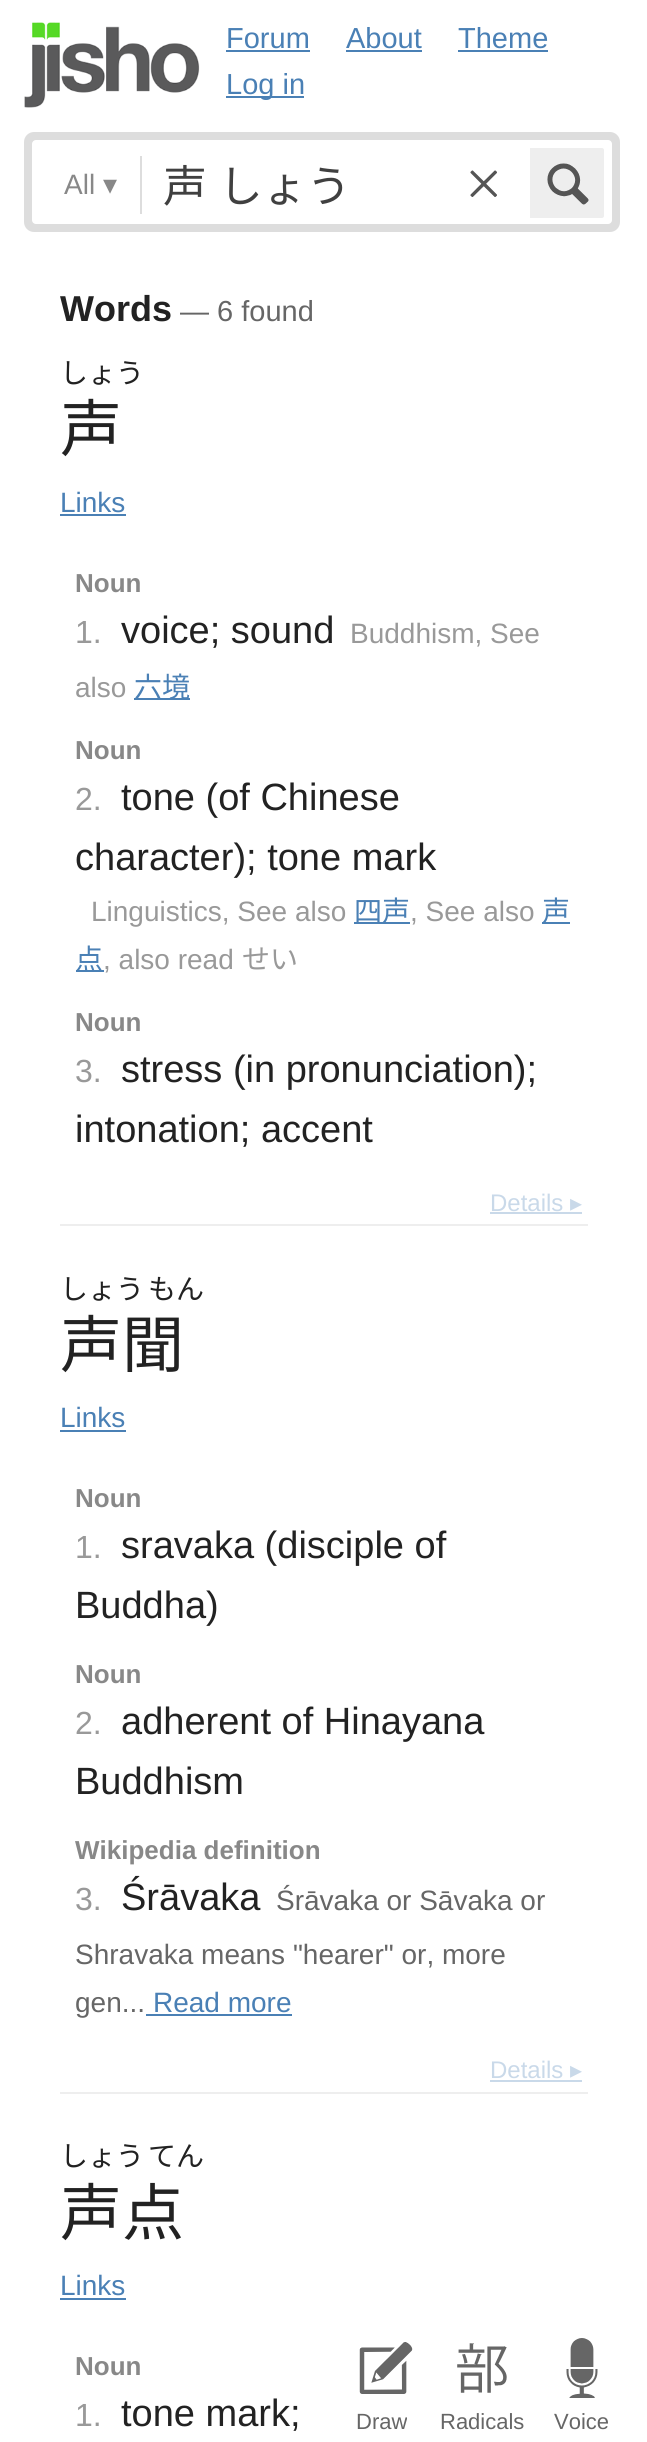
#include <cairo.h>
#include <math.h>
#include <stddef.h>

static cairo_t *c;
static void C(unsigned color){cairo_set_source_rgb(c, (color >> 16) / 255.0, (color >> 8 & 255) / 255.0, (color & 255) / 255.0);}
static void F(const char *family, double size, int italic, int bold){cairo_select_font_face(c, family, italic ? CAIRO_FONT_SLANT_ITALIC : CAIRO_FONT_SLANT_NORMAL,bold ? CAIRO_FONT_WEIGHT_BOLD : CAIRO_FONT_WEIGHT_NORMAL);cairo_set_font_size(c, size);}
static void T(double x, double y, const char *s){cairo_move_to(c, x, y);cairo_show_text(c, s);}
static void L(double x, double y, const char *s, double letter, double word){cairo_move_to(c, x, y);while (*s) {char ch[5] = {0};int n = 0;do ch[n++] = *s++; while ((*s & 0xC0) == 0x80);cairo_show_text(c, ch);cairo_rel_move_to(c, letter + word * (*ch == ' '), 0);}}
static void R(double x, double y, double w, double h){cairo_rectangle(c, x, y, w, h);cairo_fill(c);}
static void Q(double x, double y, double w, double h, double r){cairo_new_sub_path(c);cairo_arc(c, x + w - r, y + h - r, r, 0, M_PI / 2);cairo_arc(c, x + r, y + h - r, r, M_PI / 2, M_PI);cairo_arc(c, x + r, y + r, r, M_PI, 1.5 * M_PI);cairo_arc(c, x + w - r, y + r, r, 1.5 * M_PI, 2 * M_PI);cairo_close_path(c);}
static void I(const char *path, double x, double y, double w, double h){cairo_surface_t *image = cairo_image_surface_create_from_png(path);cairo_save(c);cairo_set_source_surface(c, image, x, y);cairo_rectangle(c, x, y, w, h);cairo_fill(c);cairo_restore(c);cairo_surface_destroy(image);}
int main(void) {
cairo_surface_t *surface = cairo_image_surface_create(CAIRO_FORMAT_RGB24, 647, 2442);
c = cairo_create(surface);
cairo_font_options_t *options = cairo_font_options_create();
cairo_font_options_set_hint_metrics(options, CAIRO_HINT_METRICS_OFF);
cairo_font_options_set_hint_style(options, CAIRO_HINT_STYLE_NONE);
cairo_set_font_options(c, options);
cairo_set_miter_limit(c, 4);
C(0xffffff);
cairo_paint(c);
I("1.png",24,22,176,86);
F("Liberation Sans",29,0,0);
C(0x4a80b5);
T(226,48,"Forum");
R(226,50,84,2);
T(346,48,"About");
R(346,50,76,2);
T(458,48,"Theme");
R(458,50,90,2);
R(226,96,78,2);
T(226,94,"Log in");
C(0xdddddd);
Q(24,132,596,100,10);
cairo_fill(c);
C(0xffffff);
Q(32,140,580,84,4);
cairo_fill(c);
C(0xdddddd);
R(140,156,2,58);
F("Liberation Sans",28,0,0);
C(0x888888);
T(64,194,"All");
F("DejaVu Sans",28,0,0);
T(103,194,"▾");
F("Noto Sans CJK JP",44,0,0);
C(0x404040);
L(163,202,"声 しょう",0,2);
I("2.png",470,170,27,27);
C(0xeeeeee);
cairo_new_path(c);
cairo_move_to(c,530,148);
cairo_line_to(c,602,148);
cairo_curve_to(c,603,148,604,149,604,150);
cairo_line_to(c,604,216);
cairo_curve_to(c,604,217,603,218,602,218);
cairo_line_to(c,530,218);
cairo_close_path(c);
cairo_fill(c);
I("3.png",547,163,42,42);
I("4.png",359,2342,54,52);
F("Liberation Sans",22,0,0);
C(0x666666);
T(356,2429,"Draw");
I("5.png",457,2343,50,50);
T(440,2429,"Radicals");
I("6.png",566,2338,32,60);
T(554,2429,"Voice");
F("Liberation Sans",36,0,1);
C(0x222222);
T(60,321,"Words");
F("Liberation Sans",29,0,0);
C(0x666666);
T(180,321,"— 6 found");
C(0xeeeeee);
R(60,1224,528,2);
F("Noto Sans CJK JP",28,0,0);
C(0x222222);
T(60,383,"しょう");
F("Noto Sans CJK JP",62,0,0);
T(60,451,"声");
F("Liberation Sans",28,0,0);
C(0x4a80b5);
T(60,512,"Links");
R(60,514,66,2);
F("Liberation Sans",26,0,1);
C(0x888888);
T(75,592,"Noun");
F("Liberation Sans",32,0,0);
C(0x999999);
T(75,643,"1.");
F("Liberation Sans",38,0,0);
C(0x222222);
T(121,643,"voice; sound");
F("Liberation Sans",28,0,0);
C(0x999999);
T(350,643,"Buddhism, See");
T(75,697,"also");
C(0x4a80b5);
R(134,698,56,2);
F("Noto Sans CJK JP",28,0,0);
T(134,697,"六境");
F("Liberation Sans",26,0,1);
C(0x888888);
T(75,759,"Noun");
F("Liberation Sans",32,0,0);
C(0x999999);
T(75,810,"2.");
F("Liberation Sans",38,0,0);
C(0x222222);
T(121,810,"tone (of Chinese");
T(75,870,"character); tone mark");
F("Liberation Sans",28,0,0);
C(0x999999);
T(91,921,"Linguistics, See also");
C(0x4a80b5);
R(354,922,56,2);
F("Noto Sans CJK JP",28,0,0);
T(354,921,"四声");
F("Liberation Sans",28,0,0);
C(0x999999);
T(410,921,", See also");
C(0x4a80b5);
R(542,922,28,2);
F("Noto Sans CJK JP",28,0,0);
T(542,921,"声");
R(76,970,28,2);
T(75,969,"点");
F("Liberation Sans",28,0,0);
C(0x999999);
T(103,969,", also read");
F("Noto Sans CJK JP",28,0,0);
T(242,969,"せい");
F("Liberation Sans",26,0,1);
C(0x888888);
T(75,1031,"Noun");
F("Liberation Sans",32,0,0);
C(0x999999);
T(75,1082,"3.");
F("Liberation Sans",38,0,0);
C(0x222222);
T(121,1082,"stress (in pronunciation);");
T(75,1142,"intonation; accent");
F("Liberation Sans",24,0,0);
C(0xc9d9e9);
T(490,1211,"Details");
F("DejaVu Sans",24,0,0);
T(570,1211,"▸");
R(490,1212,92,2);
C(0xeeeeee);
R(60,2092,528,2);
F("Noto Sans CJK JP",28,0,0);
C(0x222222);
T(60,1299,"しょう");
T(148,1299,"もん");
F("Noto Sans CJK JP",62,0,0);
T(60,1367,"声聞");
F("Liberation Sans",28,0,0);
C(0x4a80b5);
T(60,1427,"Links");
R(60,1430,66,2);
F("Liberation Sans",26,0,1);
C(0x888888);
T(75,1507,"Noun");
F("Liberation Sans",32,0,0);
C(0x999999);
T(75,1558,"1.");
F("Liberation Sans",38,0,0);
C(0x222222);
T(121,1558,"sravaka (disciple of");
T(75,1618,"Buddha)");
F("Liberation Sans",26,0,1);
C(0x888888);
T(75,1683,"Noun");
F("Liberation Sans",32,0,0);
C(0x999999);
T(75,1734,"2.");
F("Liberation Sans",38,0,0);
C(0x222222);
T(121,1734,"adherent of Hinayana");
T(75,1794,"Buddhism");
F("Liberation Sans",26,0,1);
C(0x888888);
T(75,1859,"Wikipedia definition");
F("Liberation Sans",32,0,0);
C(0x999999);
T(75,1910,"3.");
F("Liberation Sans",38,0,0);
C(0x222222);
T(121,1910,"Śrāvaka");
F("Liberation Sans",28,0,0);
C(0x666666);
T(276,1910,"Śrāvaka or Sāvaka or");
T(75,1964,"Shravaka means \"hearer\" or, more");
T(75,2012,"gen...");
C(0x4a80b5);
R(146,2014,146,2);
T(153,2012,"Read more");
F("Liberation Sans",24,0,0);
C(0xc9d9e9);
T(490,2078,"Details");
F("DejaVu Sans",24,0,0);
T(570,2078,"▸");
R(490,2080,92,2);
F("Noto Sans CJK JP",28,0,0);
C(0x222222);
T(60,2166,"しょう");
T(148,2166,"てん");
F("Noto Sans CJK JP",62,0,0);
T(60,2235,"声点");
F("Liberation Sans",28,0,0);
C(0x4a80b5);
T(60,2295,"Links");
R(60,2298,66,2);
F("Liberation Sans",26,0,1);
C(0x888888);
T(75,2375,"Noun");
F("Liberation Sans",32,0,0);
C(0x999999);
T(75,2426,"1.");
F("Liberation Sans",38,0,0);
C(0x222222);
T(121,2426,"tone mark;");
cairo_surface_write_to_png(surface, "o.png");
cairo_font_options_destroy(options);
cairo_destroy(c);
cairo_surface_destroy(surface);
return 0;
}
